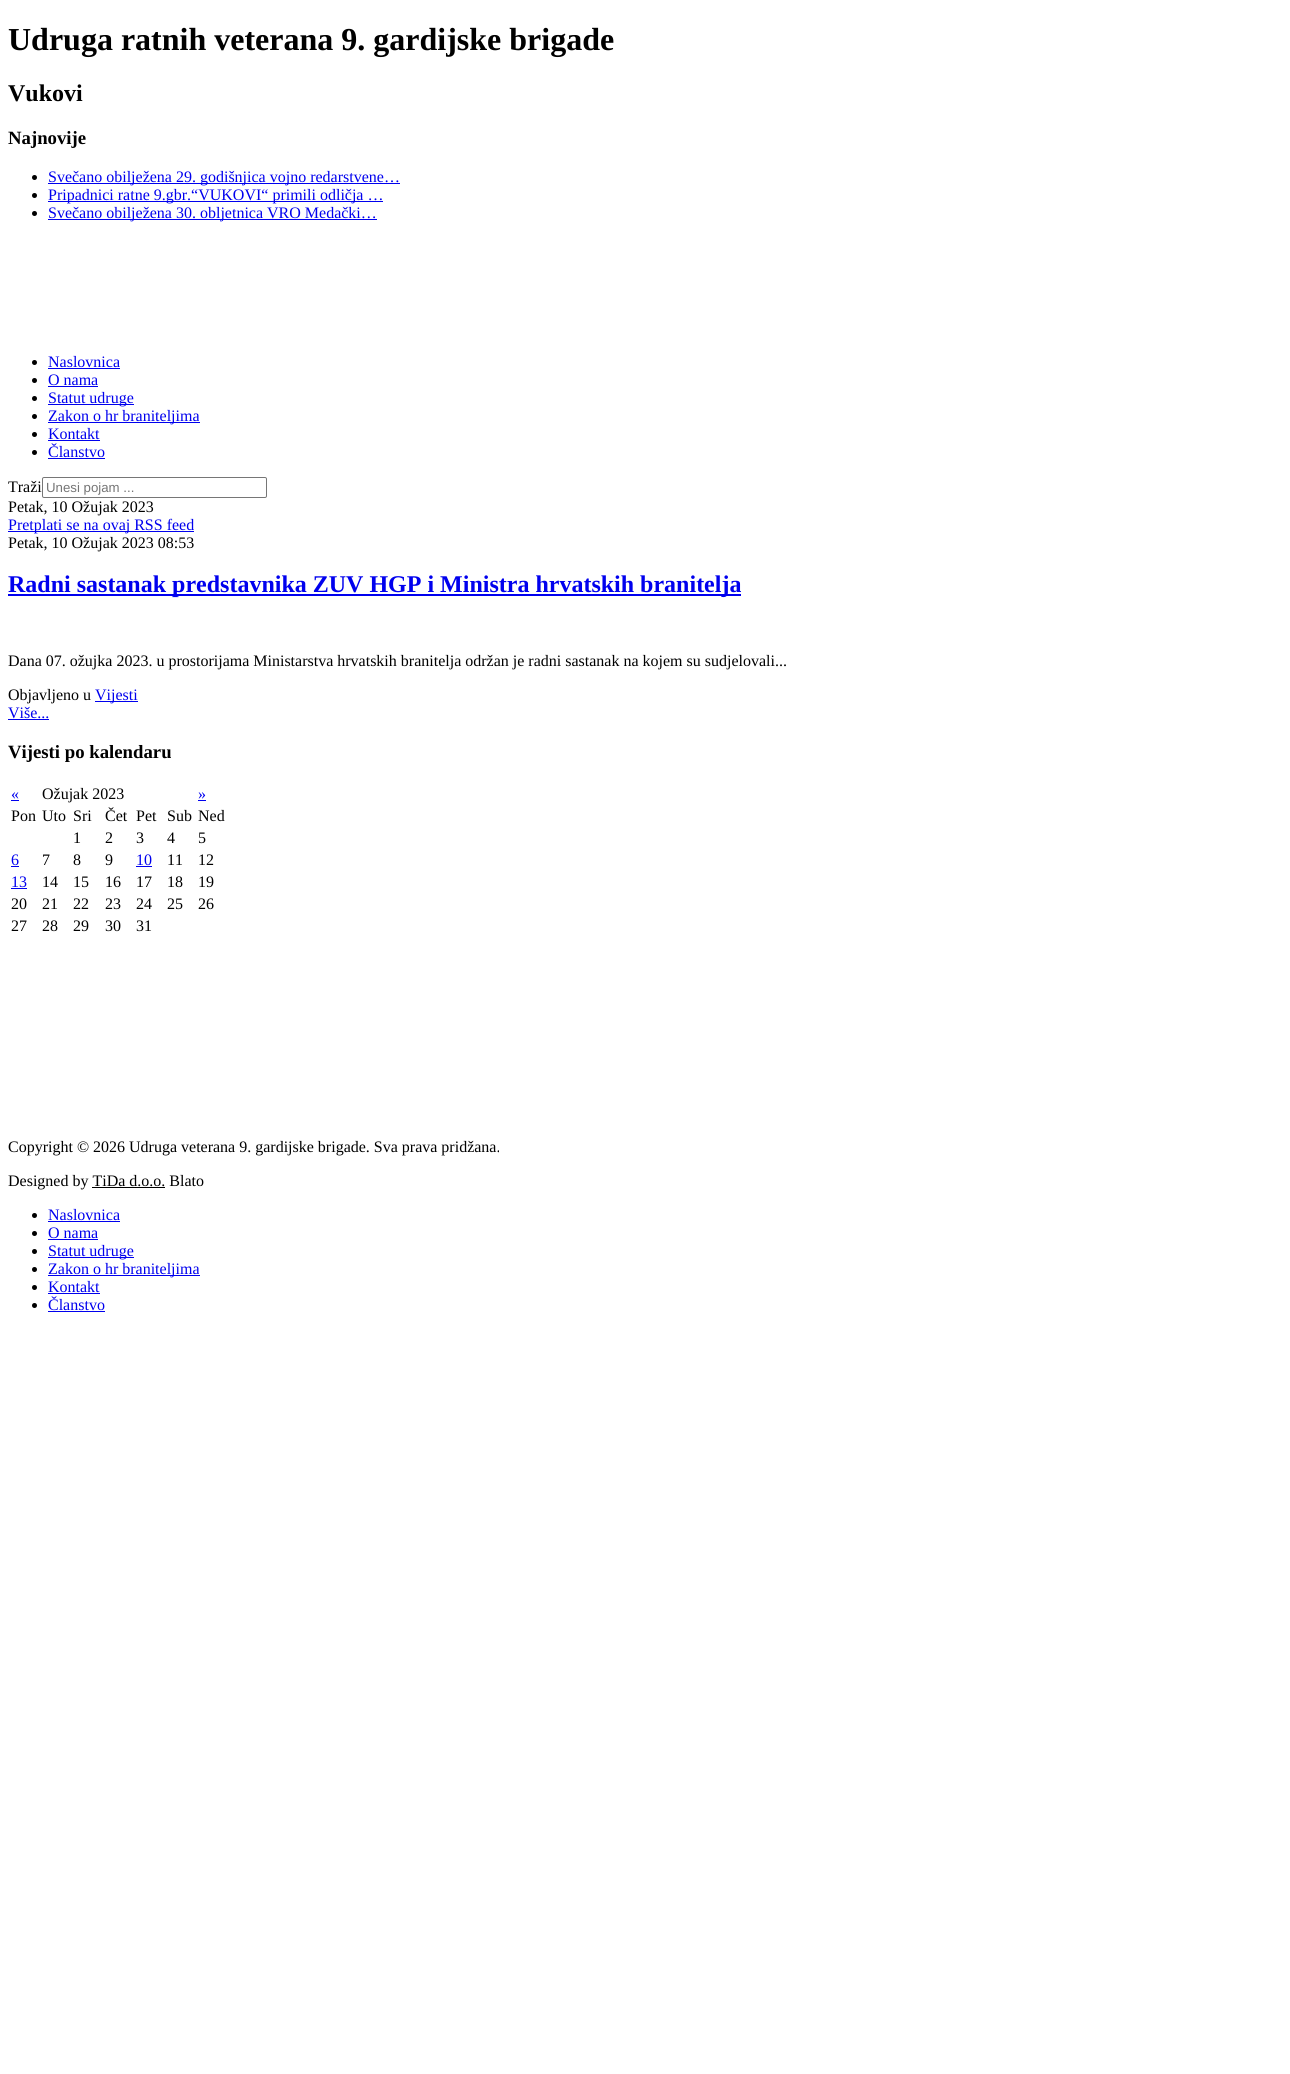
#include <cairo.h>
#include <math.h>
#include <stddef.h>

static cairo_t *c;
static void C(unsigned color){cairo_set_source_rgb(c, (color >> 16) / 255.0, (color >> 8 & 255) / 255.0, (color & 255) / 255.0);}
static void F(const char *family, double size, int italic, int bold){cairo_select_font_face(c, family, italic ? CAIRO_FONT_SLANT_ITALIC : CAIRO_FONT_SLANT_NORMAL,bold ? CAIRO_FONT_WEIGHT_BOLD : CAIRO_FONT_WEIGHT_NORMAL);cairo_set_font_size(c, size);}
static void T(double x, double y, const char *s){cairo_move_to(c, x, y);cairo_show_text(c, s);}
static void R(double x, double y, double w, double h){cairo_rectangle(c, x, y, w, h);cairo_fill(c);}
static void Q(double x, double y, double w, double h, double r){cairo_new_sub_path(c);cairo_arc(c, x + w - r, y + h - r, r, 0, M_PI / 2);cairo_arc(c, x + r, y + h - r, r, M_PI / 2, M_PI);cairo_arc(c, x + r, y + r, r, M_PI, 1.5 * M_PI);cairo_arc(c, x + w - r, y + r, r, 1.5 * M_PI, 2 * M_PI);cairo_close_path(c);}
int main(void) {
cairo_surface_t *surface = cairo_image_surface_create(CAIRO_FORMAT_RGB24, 1290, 2074);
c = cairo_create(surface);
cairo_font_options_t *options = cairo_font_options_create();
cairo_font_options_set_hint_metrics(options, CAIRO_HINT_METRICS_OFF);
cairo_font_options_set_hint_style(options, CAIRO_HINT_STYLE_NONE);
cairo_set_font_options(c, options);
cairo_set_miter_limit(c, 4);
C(0xffffff);
cairo_paint(c);
F("Liberation Serif",32,0,1);
C(0x000000);
T(8,50,"Udruga ratnih veterana 9. gardijske brigade");
F("Liberation Serif",24,0,1);
T(8,101,"Vukovi");
F("Liberation Serif",18.75,0,1);
T(8,144,"Najnovije");
cairo_new_path(c);
cairo_arc(c,34.5,177.5,2.5,0,2 * M_PI);
cairo_fill(c);
C(0x0000ee);
R(48,183,352,1);
F("Liberation Serif",16,0,0);
T(48,182,"Svečano obilježena 29. godišnjica vojno redarstvene…");
C(0x000000);
cairo_new_path(c);
cairo_arc(c,34.5,195.5,2.5,0,2 * M_PI);
cairo_fill(c);
C(0x0000ee);
R(48,201,335,1);
T(48,200,"Pripadnici ratne 9.gbr.“VUKOVI“ primili odličja …");
C(0x000000);
cairo_new_path(c);
cairo_arc(c,34.5,213.5,2.5,0,2 * M_PI);
cairo_fill(c);
C(0x0000ee);
R(48,219,329,1);
T(48,218,"Svečano obilježena 30. obljetnica VRO Medački…");
C(0x000000);
cairo_new_path(c);
cairo_arc(c,34.5,362.5,2.5,0,2 * M_PI);
cairo_fill(c);
C(0x0000ee);
T(48,367,"Naslovnica");
R(48,368,72,1);
C(0x000000);
cairo_new_path(c);
cairo_arc(c,34.5,380.5,2.5,0,2 * M_PI);
cairo_fill(c);
C(0x0000ee);
T(48,385,"O nama");
R(48,386,50,1);
C(0x000000);
cairo_new_path(c);
cairo_arc(c,34.5,398.5,2.5,0,2 * M_PI);
cairo_fill(c);
C(0x0000ee);
R(48,404,86,1);
T(48,403,"Statut udruge");
C(0x000000);
cairo_new_path(c);
cairo_arc(c,34.5,416.5,2.5,0,2 * M_PI);
cairo_fill(c);
C(0x0000ee);
R(48,422,152,1);
T(48,421,"Zakon o hr braniteljima");
C(0x000000);
cairo_new_path(c);
cairo_arc(c,34.5,434.5,2.5,0,2 * M_PI);
cairo_fill(c);
C(0x0000ee);
T(48,439,"Kontakt");
R(48,440,52,1);
C(0x000000);
cairo_new_path(c);
cairo_arc(c,34.5,452.5,2.5,0,2 * M_PI);
cairo_fill(c);
C(0x0000ee);
T(48,457,"Članstvo");
R(48,458,57,1);
C(0x000000);
T(8,492,"Traži");
Q(42.5,477.5,224,20,1.5);
C(0x767676);
cairo_set_line_width(c,1);
cairo_stroke(c);
F("Liberation Sans",13.25,0,0);
C(0x757575);
T(46,492,"Unesi pojam ...");
F("Liberation Serif",16,0,0);
C(0x000000);
T(8,512,"Petak, 10 Ožujak 2023");
C(0x0000ee);
R(8,531,186,1);
T(8,530,"Pretplati se na ovaj RSS feed");
C(0x000000);
T(8,548,"Petak, 10 Ožujak 2023 08:53");
C(0x0000ee);
R(8,594,733,2);
F("Liberation Serif",24,0,1);
T(8,592,"Radni sastanak predstavnika ZUV HGP i Ministra hrvatskih branitelja");
F("Liberation Serif",16,0,0);
C(0x000000);
T(8,666,"Dana 07. ožujka 2023. u prostorijama Ministarstva hrvatskih branitelja održan je radni sastanak na kojem su sudjelovali...");
T(8,700,"Objavljeno u");
C(0x0000ee);
R(95,701,43,1);
T(95,700,"Vijesti");
T(8,718,"Više...");
R(8,719,41,1);
F("Liberation Serif",18.75,0,1);
C(0x000000);
T(8,758,"Vijesti po kalendaru");
F("Liberation Serif",16,0,0);
C(0x0000ee);
T(11,799,"«");
R(11,800,8,1);
C(0x000000);
T(42,799,"Ožujak 2023");
C(0x0000ee);
T(198,799,"»");
R(198,800,8,1);
C(0x000000);
T(11,821,"Pon");
T(42,821,"Uto");
T(73,821,"Sri");
T(105,821,"Čet");
T(136,821,"Pet");
T(167,821,"Sub");
T(198,821,"Ned");
T(73,843,"1");
T(105,843,"2");
T(136,843,"3");
T(167,843,"4");
T(198,843,"5");
C(0x0000ee);
T(11,865,"6");
R(11,866,8,1);
C(0x000000);
T(42,865,"7");
T(73,865,"8");
T(105,865,"9");
C(0x0000ee);
T(136,865,"10");
R(136,866,16,1);
C(0x000000);
T(167,865,"11");
T(198,865,"12");
C(0x0000ee);
T(11,887,"13");
R(11,888,16,1);
C(0x000000);
T(42,887,"14");
T(73,887,"15");
T(105,887,"16");
T(136,887,"17");
T(167,887,"18");
T(198,887,"19");
T(11,909,"20");
T(42,909,"21");
T(73,909,"22");
T(105,909,"23");
T(136,909,"24");
T(167,909,"25");
T(198,909,"26");
T(11,931,"27");
T(42,931,"28");
T(73,931,"29");
T(105,931,"30");
T(136,931,"31");
T(8,1152,"Copyright © 2026 Udruga veterana 9. gardijske brigade. Sva prava pridžana.");
T(8,1186,"Designed by TiDa d.o.o. Blato");
R(92,1187,73,1);
cairo_new_path(c);
cairo_arc(c,34.5,1215.5,2.5,0,2 * M_PI);
cairo_fill(c);
C(0x0000ee);
T(48,1220,"Naslovnica");
R(48,1221,72,1);
C(0x000000);
cairo_new_path(c);
cairo_arc(c,34.5,1233.5,2.5,0,2 * M_PI);
cairo_fill(c);
C(0x0000ee);
T(48,1238,"O nama");
R(48,1239,50,1);
C(0x000000);
cairo_new_path(c);
cairo_arc(c,34.5,1251.5,2.5,0,2 * M_PI);
cairo_fill(c);
C(0x0000ee);
R(48,1257,86,1);
T(48,1256,"Statut udruge");
C(0x000000);
cairo_new_path(c);
cairo_arc(c,34.5,1269.5,2.5,0,2 * M_PI);
cairo_fill(c);
C(0x0000ee);
R(48,1275,152,1);
T(48,1274,"Zakon o hr braniteljima");
C(0x000000);
cairo_new_path(c);
cairo_arc(c,34.5,1287.5,2.5,0,2 * M_PI);
cairo_fill(c);
C(0x0000ee);
T(48,1292,"Kontakt");
R(48,1293,52,1);
C(0x000000);
cairo_new_path(c);
cairo_arc(c,34.5,1305.5,2.5,0,2 * M_PI);
cairo_fill(c);
C(0x0000ee);
T(48,1310,"Članstvo");
R(48,1311,57,1);
cairo_surface_write_to_png(surface, "o.png");
cairo_font_options_destroy(options);
cairo_destroy(c);
cairo_surface_destroy(surface);
return 0;
}
